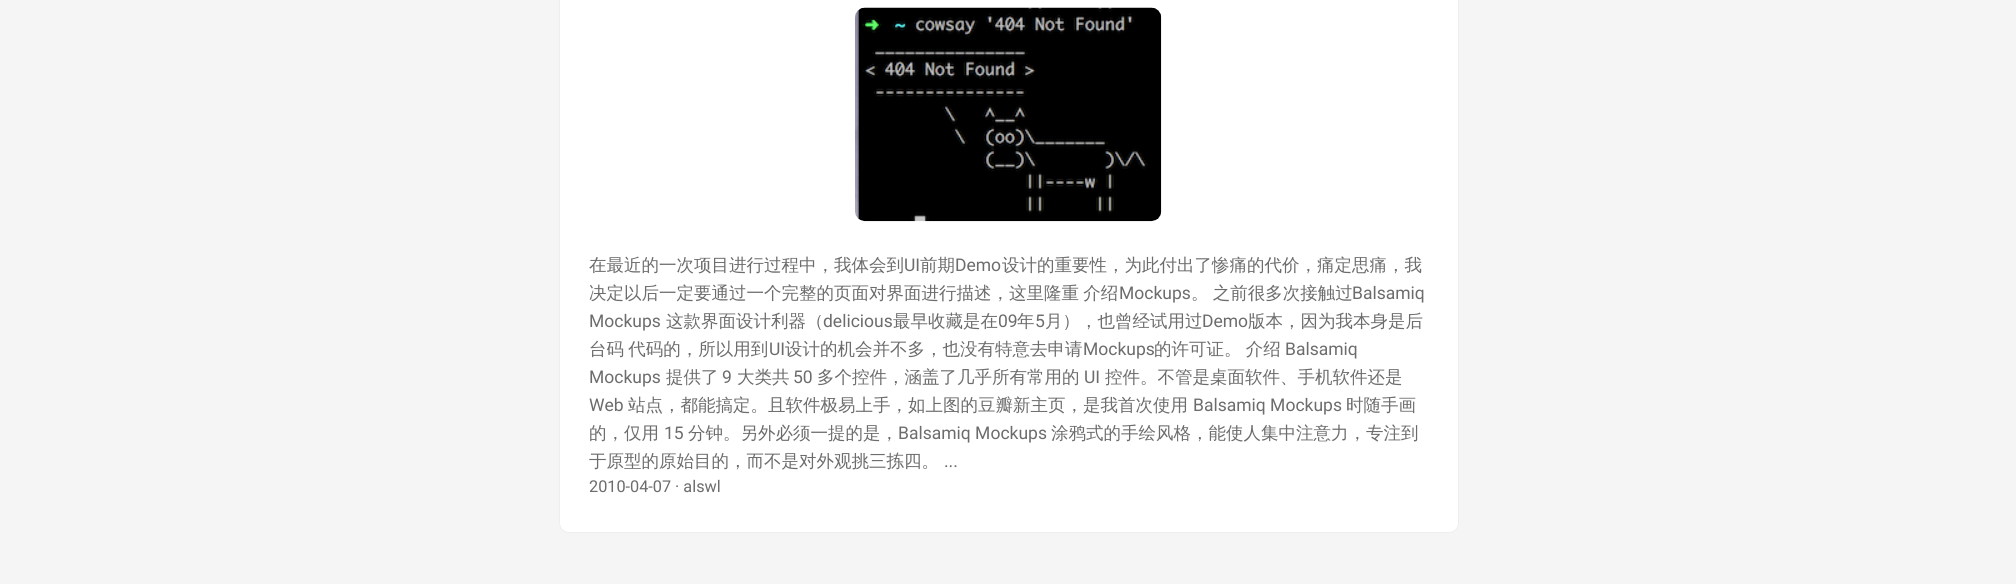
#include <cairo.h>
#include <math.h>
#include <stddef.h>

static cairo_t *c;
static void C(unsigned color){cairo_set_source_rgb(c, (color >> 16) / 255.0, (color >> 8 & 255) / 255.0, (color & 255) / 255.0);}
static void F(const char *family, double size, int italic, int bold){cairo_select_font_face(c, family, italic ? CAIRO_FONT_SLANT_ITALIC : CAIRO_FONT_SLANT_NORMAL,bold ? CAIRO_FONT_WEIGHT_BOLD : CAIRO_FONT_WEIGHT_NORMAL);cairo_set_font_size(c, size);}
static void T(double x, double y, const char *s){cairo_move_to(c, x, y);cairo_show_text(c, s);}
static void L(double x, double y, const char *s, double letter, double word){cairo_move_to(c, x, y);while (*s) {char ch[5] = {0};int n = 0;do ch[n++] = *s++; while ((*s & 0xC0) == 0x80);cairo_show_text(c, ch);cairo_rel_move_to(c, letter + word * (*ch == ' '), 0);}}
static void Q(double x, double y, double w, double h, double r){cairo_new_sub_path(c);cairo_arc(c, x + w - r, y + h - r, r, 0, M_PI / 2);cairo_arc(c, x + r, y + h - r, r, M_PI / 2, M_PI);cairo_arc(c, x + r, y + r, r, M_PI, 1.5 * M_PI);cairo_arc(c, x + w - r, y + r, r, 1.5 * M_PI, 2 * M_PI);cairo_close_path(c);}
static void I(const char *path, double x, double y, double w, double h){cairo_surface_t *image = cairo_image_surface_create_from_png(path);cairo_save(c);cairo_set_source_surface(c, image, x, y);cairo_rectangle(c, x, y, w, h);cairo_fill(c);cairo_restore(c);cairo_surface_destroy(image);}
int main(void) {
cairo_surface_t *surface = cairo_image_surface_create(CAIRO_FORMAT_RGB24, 2016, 584);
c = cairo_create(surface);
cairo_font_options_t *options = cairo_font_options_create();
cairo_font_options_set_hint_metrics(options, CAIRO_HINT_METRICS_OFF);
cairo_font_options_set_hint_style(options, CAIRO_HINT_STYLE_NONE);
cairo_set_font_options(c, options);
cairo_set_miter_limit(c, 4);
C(0xf5f5f5);
cairo_paint(c);
C(0xffffff);
Q(559.5,-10.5,899,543,9.5);
cairo_fill_preserve(c);
C(0xeeeeee);
cairo_set_line_width(c,1);
cairo_stroke(c);
I("1.png",855,7,307,215);
F("WenQuanYi Zen Hei Medium",17.5,0,0);
C(0x6c6c6c);
T(589,271,"在最近的一次项目进行过程中，我体会到");
F("Roboto",17.5,0,0);
T(904,271,"UI");
F("WenQuanYi Zen Hei Medium",17.5,0,0);
T(920,271,"前期");
F("Roboto",17.5,0,0);
T(955,271,"Demo");
F("WenQuanYi Zen Hei Medium",17.5,0,0);
T(1002,271,"设计的重要性，为此付出了惨痛的代价，痛定思痛，我");
L(589,299,"决定以后一定要通过一个完整的页面对界面进行描述，这里隆重 介绍",0,-1);
F("Roboto",17.5,0,0);
T(1119,299,"Mockups");
F("WenQuanYi Zen Hei Medium",17.5,0,0);
L(1191,299,"。 之前很多次接触过",0,-1);
F("Roboto",17.5,0,0);
T(1352,299,"Balsamiq");
T(589,327,"Mockups");
F("WenQuanYi Zen Hei Medium",17.5,0,0);
T(666,327,"这款界面设计利器（");
F("Roboto",17.5,0,0);
T(823,327,"delicious");
F("WenQuanYi Zen Hei Medium",17.5,0,0);
T(893,327,"最早收藏是在");
F("Roboto",17.5,0,0);
T(998,327,"09");
F("WenQuanYi Zen Hei Medium",17.5,0,0);
T(1017,327,"年");
F("Roboto",17.5,0,0);
T(1035,327,"5");
F("WenQuanYi Zen Hei Medium",17.5,0,0);
T(1045,327,"月），也曾经试用过");
F("Roboto",17.5,0,0);
T(1202,327,"Demo");
F("WenQuanYi Zen Hei Medium",17.5,0,0);
T(1248,327,"版本，因为我本身是后");
L(589,355,"台码 代码的，所以用到",0,-1);
F("Roboto",17.5,0,0);
T(769,355,"UI");
F("WenQuanYi Zen Hei Medium",17.5,0,0);
T(785,355,"设计的机会并不多，也没有特意去申请");
F("Roboto",17.5,0,0);
T(1083,355,"Mockups");
F("WenQuanYi Zen Hei Medium",17.5,0,0);
L(1154,355,"的许可证。 介绍",0,-1);
F("Roboto",17.5,0,0);
T(1285,355,"Balsamiq");
T(589,383,"Mockups");
F("WenQuanYi Zen Hei Medium",17.5,0,0);
T(666,383,"提供了");
F("Roboto",17.5,0,0);
T(722,383,"9");
F("WenQuanYi Zen Hei Medium",17.5,0,0);
T(737,383,"大类共");
F("Roboto",17.5,0,0);
T(793,383,"50");
F("WenQuanYi Zen Hei Medium",17.5,0,0);
T(817,383,"多个控件，涵盖了几乎所有常用的");
F("Roboto",17.5,0,0);
T(1084,383,"UI");
F("WenQuanYi Zen Hei Medium",17.5,0,0);
T(1105,383,"控件。不管是桌面软件、手机软件还是");
F("Roboto",17.5,0,0);
T(589,411,"Web");
F("WenQuanYi Zen Hei Medium",17.5,0,0);
T(628,411,"站点，都能搞定。且软件极易上手，如上图的豆瓣新主页，是我首次使用");
F("Roboto",17.5,0,0);
T(1193,411,"Balsamiq Mockups");
F("WenQuanYi Zen Hei Medium",17.5,0,0);
T(1346,411,"时随手画");
T(589,439,"的，仅用");
F("Roboto",17.5,0,0);
T(664,439,"15");
F("WenQuanYi Zen Hei Medium",17.5,0,0);
T(688,439,"分钟。另外必须一提的是，");
F("Roboto",17.5,0,0);
T(898,439,"Balsamiq Mockups");
F("WenQuanYi Zen Hei Medium",17.5,0,0);
T(1051,439,"涂鸦式的手绘风格，能使人集中注意力，专注到");
T(589,467,"于原型的原始目的，而不是对外观挑三拣四。");
F("Roboto",17.5,0,0);
T(944,467,"...");
F("Roboto",16.25,0,0);
T(589,492,"2010-04-07 · alswl");
cairo_surface_write_to_png(surface, "o.png");
cairo_font_options_destroy(options);
cairo_destroy(c);
cairo_surface_destroy(surface);
return 0;
}
